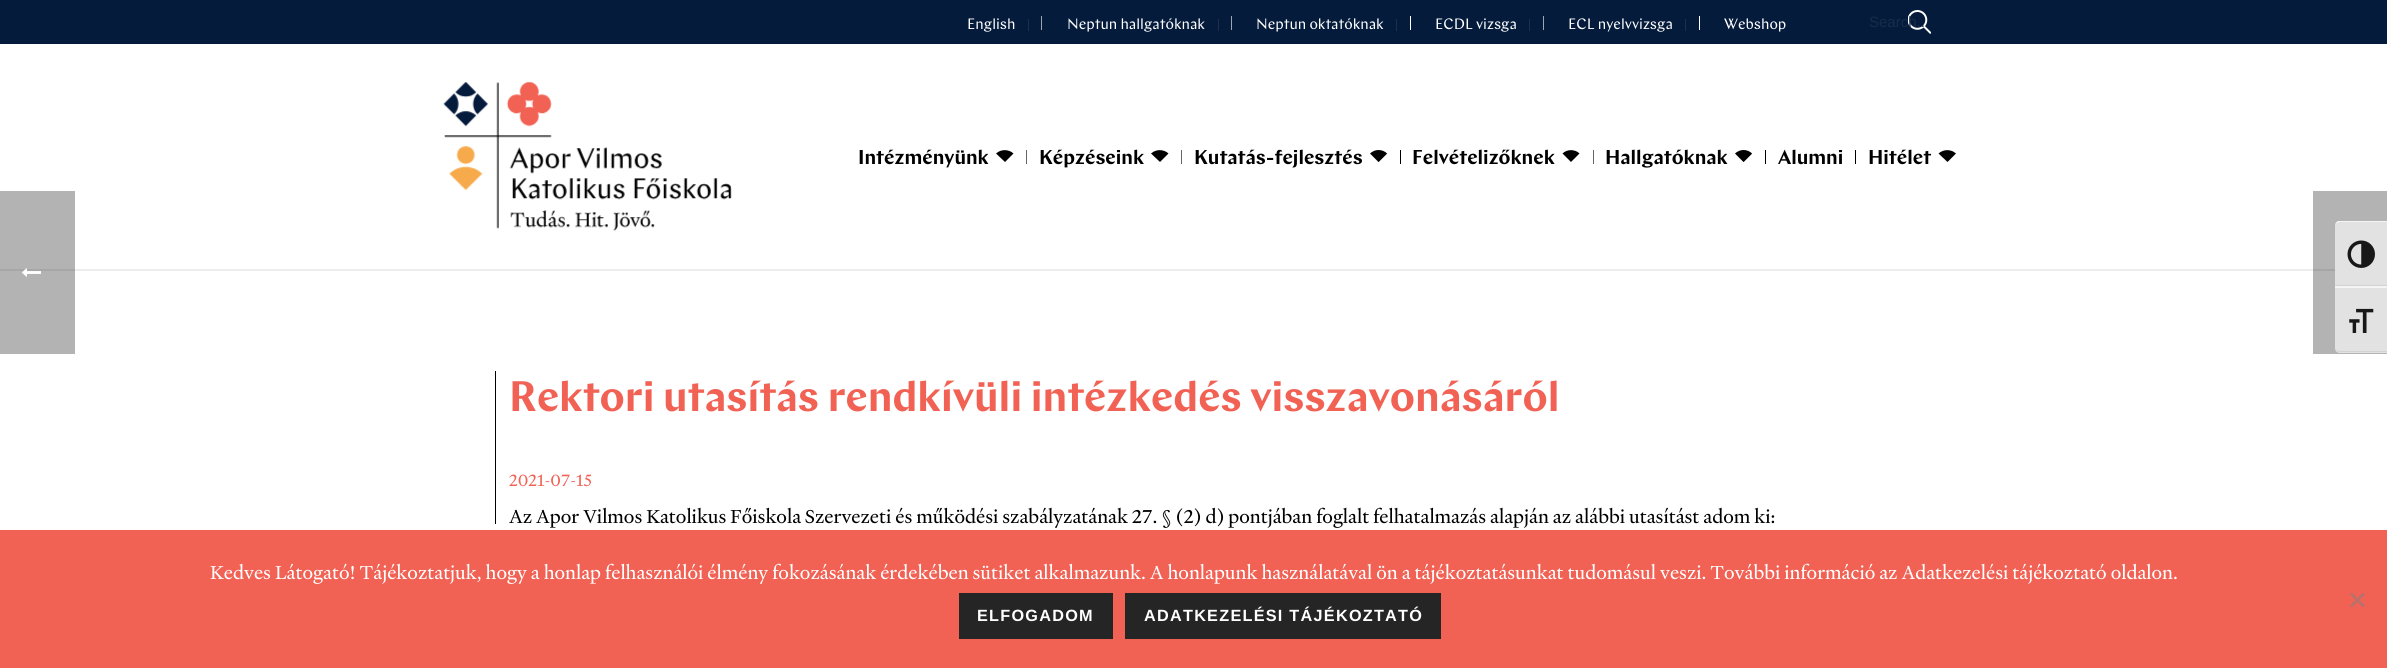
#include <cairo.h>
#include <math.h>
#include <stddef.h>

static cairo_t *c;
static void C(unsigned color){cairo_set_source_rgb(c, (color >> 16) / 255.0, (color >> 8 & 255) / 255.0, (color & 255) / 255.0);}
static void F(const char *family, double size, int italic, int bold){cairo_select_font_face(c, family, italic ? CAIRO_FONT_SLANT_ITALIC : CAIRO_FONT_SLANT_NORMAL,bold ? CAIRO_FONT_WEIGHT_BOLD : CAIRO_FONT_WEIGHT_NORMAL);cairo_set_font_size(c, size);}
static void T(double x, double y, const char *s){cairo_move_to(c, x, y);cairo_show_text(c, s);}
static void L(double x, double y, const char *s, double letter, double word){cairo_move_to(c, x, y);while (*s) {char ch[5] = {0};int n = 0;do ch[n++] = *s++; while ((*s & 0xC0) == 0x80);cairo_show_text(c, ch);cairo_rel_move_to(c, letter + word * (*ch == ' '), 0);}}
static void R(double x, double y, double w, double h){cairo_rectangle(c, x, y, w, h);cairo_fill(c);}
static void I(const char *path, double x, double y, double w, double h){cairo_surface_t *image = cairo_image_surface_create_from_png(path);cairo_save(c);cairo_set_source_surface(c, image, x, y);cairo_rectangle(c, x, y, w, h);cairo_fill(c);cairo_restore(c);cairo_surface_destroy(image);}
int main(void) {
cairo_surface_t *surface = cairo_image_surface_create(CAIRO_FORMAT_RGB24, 2387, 668);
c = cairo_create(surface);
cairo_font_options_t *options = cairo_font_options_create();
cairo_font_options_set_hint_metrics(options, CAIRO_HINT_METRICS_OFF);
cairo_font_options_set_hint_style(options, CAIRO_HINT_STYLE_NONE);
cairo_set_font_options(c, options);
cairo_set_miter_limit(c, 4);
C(0xffffff);
cairo_paint(c);
C(0xb3b3b3);
R(2313,191,74,163);
R(0,191,75,163);
C(0xa6a6a6);
R(0,269,75,2);
I("1.png",22,268,19,9);
C(0xededed);
R(75,269,2238,2);
C(0xa6a6a6);
R(2313,269,22,2);
C(0x051b3c);
R(0,0,2387,44);
C(0x1e2f4a);
R(1028,19,1,12);
F("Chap",15,0,0);
C(0xffffff);
T(967,29,"English");
cairo_save(c);
cairo_rectangle(c,1041,16,1,14);
cairo_clip(c);
cairo_new_path(c);
cairo_move_to(c,1042,16);
cairo_line_to(c,1042,30);
cairo_set_line_width(c,1.2);
cairo_stroke(c);
cairo_restore(c);
C(0x1e2f4a);
R(1218,19,1,12);
C(0xffffff);
T(1067,29,"Neptun hallgatóknak");
cairo_save(c);
cairo_rectangle(c,1231,16,1,14);
cairo_clip(c);
cairo_new_path(c);
cairo_move_to(c,1232,16);
cairo_line_to(c,1232,30);
cairo_set_line_width(c,1.2);
cairo_stroke(c);
cairo_restore(c);
C(0x1e2f4a);
R(1396,19,1,12);
C(0xffffff);
T(1256,29,"Neptun oktatóknak");
R(1410,16,1,14);
C(0x1e2f4a);
R(1529,19,1,12);
C(0xffffff);
T(1435,29,"ECDL vizsga");
cairo_save(c);
cairo_rectangle(c,1543,16,1,14);
cairo_clip(c);
cairo_new_path(c);
cairo_move_to(c,1543,16);
cairo_line_to(c,1543,30);
cairo_set_line_width(c,1.2);
cairo_stroke(c);
cairo_restore(c);
C(0x1e2f4a);
R(1685,19,1,12);
C(0xffffff);
T(1568,29,"ECL nyelvvizsga");
R(1699,16,1,14);
T(1724,29,"Webshop");
I("2.png",1908,10,23,24);
F("Liberation Sans",15,0,0);
C(0x172c4a);
T(1869,27,"Search..");
I("3.png",443,82,289,149);
C(0x000000);
cairo_new_path(c);
cairo_move_to(c,996,153.5);
cairo_line_to(c,1005,162);
cairo_line_to(c,1013.5,153.5);
cairo_curve_to(c,1008.5,149,1001,149,996,153.5);
cairo_close_path(c);
cairo_fill(c);
F("Chap SemiBold",20,0,0);
T(858,164,"Intézményünk");
cairo_new_path(c);
cairo_move_to(c,1151,153.5);
cairo_line_to(c,1160,162);
cairo_line_to(c,1168.5,153.5);
cairo_curve_to(c,1163.5,149,1156,149,1151,153.5);
cairo_close_path(c);
cairo_fill(c);
cairo_save(c);
cairo_rectangle(c,1026,150,1,14);
cairo_clip(c);
cairo_new_path(c);
cairo_move_to(c,1027,150);
cairo_line_to(c,1027,164);
cairo_set_line_width(c,1.2);
cairo_stroke(c);
cairo_restore(c);
T(1039,164,"Képzéseink");
I("4.png",1370,150,17,12);
cairo_save(c);
cairo_rectangle(c,1181,150,1,14);
cairo_clip(c);
cairo_new_path(c);
cairo_move_to(c,1182,150);
cairo_line_to(c,1182,164);
cairo_set_line_width(c,1.2);
cairo_stroke(c);
cairo_restore(c);
T(1194,164,"Kutatás-fejlesztés");
cairo_new_path(c);
cairo_move_to(c,1562.5,153.5);
cairo_line_to(c,1571,162);
cairo_line_to(c,1579.5,153.5);
cairo_curve_to(c,1575,149,1567,149,1562.5,153.5);
cairo_close_path(c);
cairo_fill(c);
R(1400,150,1,14);
T(1412,164,"Felvételizőknek");
I("4.png",1735,150,17,12);
cairo_save(c);
cairo_rectangle(c,1593,150,1,14);
cairo_clip(c);
cairo_new_path(c);
cairo_move_to(c,1593,150);
cairo_line_to(c,1593,164);
cairo_set_line_width(c,1.2);
cairo_stroke(c);
cairo_restore(c);
T(1605,164,"Hallgatóknak");
R(1765,150,1,14);
T(1778,164,"Alumni");
cairo_new_path(c);
cairo_move_to(c,1938.5,153.5);
cairo_line_to(c,1947.5,162);
cairo_line_to(c,1956,153.5);
cairo_curve_to(c,1951,149,1943.5,149,1938.5,153.5);
cairo_close_path(c);
cairo_fill(c);
R(1855,150,1,14);
T(1868,164,"Hitélet");
R(495,371,1,153);
F("Chap SemiBold",42.5,0,0);
C(0xf16154);
T(509,411,"Rektori utasítás rendkívüli intézkedés visszavonásáról");
F("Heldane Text",17.5,1,0);
T(509,486,"2021-07-15");
F("Heldane Text",20,1,0);
C(0x000000);
T(509,523,"Az Apor Vilmos Katolikus Főiskola Szervezeti és működési szabályzatának 27. § (2) d) pontjában foglalt felhatalmazás alapján az alábbi utasítást adom ki:");
C(0xe2e2e2);
cairo_new_path(c);
cairo_move_to(c,2340,221);
cairo_line_to(c,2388,221);
cairo_line_to(c,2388,286);
cairo_line_to(c,2335,286);
cairo_line_to(c,2335,226);
cairo_curve_to(c,2335,223,2337,221,2340,221);
cairo_close_path(c);
cairo_fill(c);
C(0xf5f5f5);
cairo_new_path(c);
cairo_move_to(c,2340,222);
cairo_curve_to(c,2337,222,2335,224,2335,226);
cairo_curve_to(c,2335,224,2336,222,2338,221);
cairo_line_to(c,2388,221);
cairo_line_to(c,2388,222);
cairo_close_path(c);
cairo_fill(c);
C(0xd2d2d2);
R(2335,285,52,1);
I("5.png",2347,240,28,28);
C(0xe2e2e2);
cairo_new_path(c);
cairo_move_to(c,2335,286);
cairo_line_to(c,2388,286);
cairo_line_to(c,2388,353);
cairo_line_to(c,2340,353);
cairo_curve_to(c,2337,353,2335,351,2335,348);
cairo_close_path(c);
cairo_fill(c);
C(0xf5f5f5);
R(2335,286,52,2);
C(0xd2d2d2);
cairo_new_path(c);
cairo_move_to(c,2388,351);
cairo_line_to(c,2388,352);
cairo_line_to(c,2340,352);
cairo_curve_to(c,2337,352,2335,350,2335,348);
cairo_curve_to(c,2335,350,2337,351,2340,351);
cairo_close_path(c);
cairo_fill(c);
I("6.png",2349,308,25,25);
C(0xf16154);
R(0,530,2387,138);
C(0xffffff);
T(210,579,"Kedves Látogató! Tájékoztatjuk, hogy a honlap felhasználói élmény fokozásának érdekében sütiket alkalmazunk. A honlapunk használatával ön a tájékoztatásunkat tudomásul veszi. További információ az Adatkezelési tájékoztató oldalon.");
C(0xb9716a);
cairo_new_path(c);
cairo_move_to(c,2363,592.5);
cairo_line_to(c,2365,594.5);
cairo_line_to(c,2352,607.5);
cairo_line_to(c,2350,605.5);
cairo_close_path(c);
cairo_fill(c);
cairo_new_path(c);
cairo_move_to(c,2350,594.5);
cairo_line_to(c,2352,592.5);
cairo_line_to(c,2365,605.5);
cairo_line_to(c,2363,607.5);
cairo_close_path(c);
cairo_fill(c);
C(0x252525);
R(959,593,154,46);
F("Liberation Sans",16.25,0,1);
C(0xffffff);
L(977,621,"ELFOGADOM",1.25,0);
C(0x252525);
R(1125,593,316,46);
C(0xffffff);
L(1144,621,"ADATKEZELÉSI TÁJÉKOZTATÓ",1.25,0);
cairo_surface_write_to_png(surface, "o.png");
cairo_font_options_destroy(options);
cairo_destroy(c);
cairo_surface_destroy(surface);
return 0;
}
